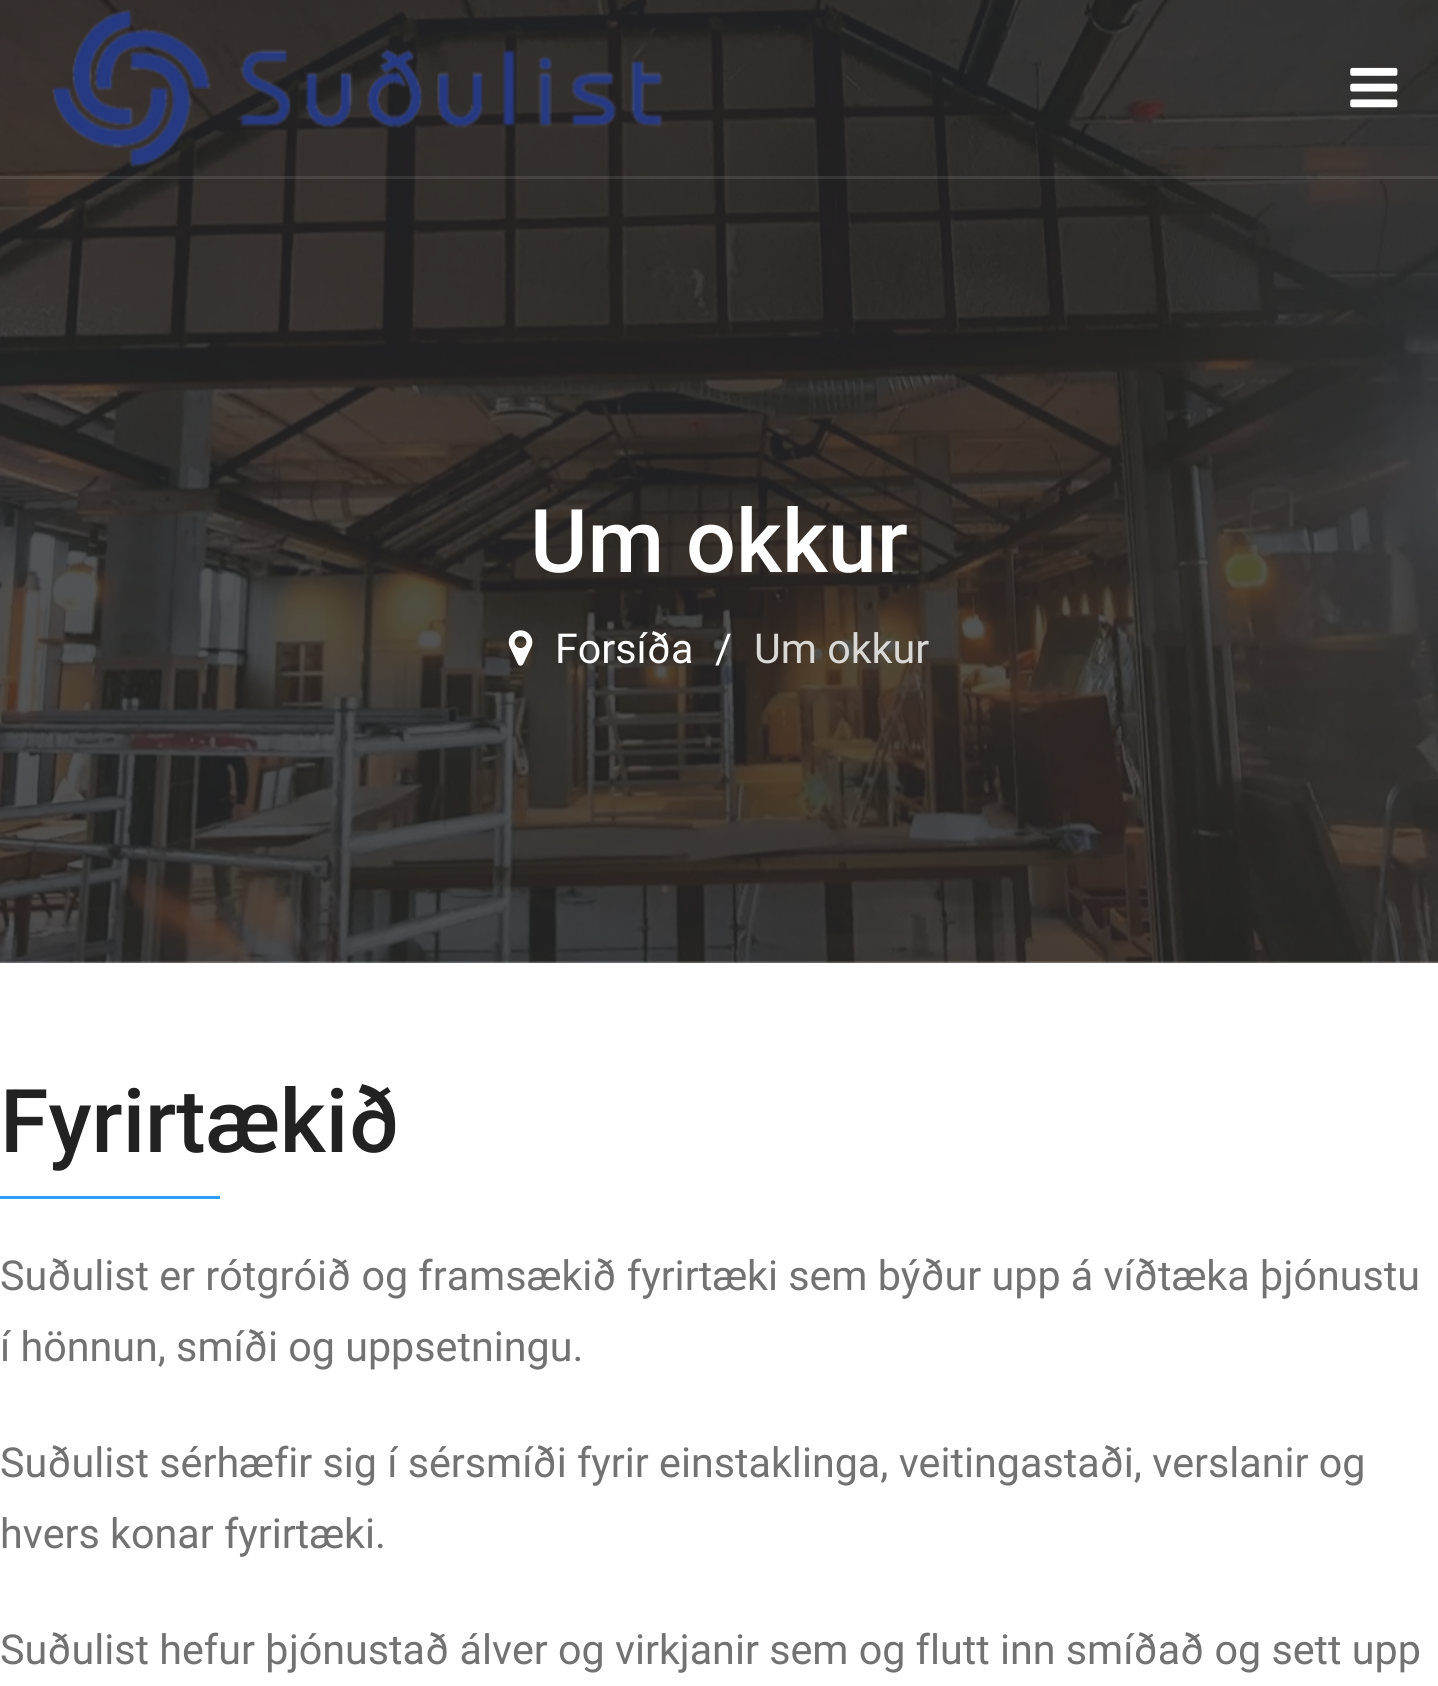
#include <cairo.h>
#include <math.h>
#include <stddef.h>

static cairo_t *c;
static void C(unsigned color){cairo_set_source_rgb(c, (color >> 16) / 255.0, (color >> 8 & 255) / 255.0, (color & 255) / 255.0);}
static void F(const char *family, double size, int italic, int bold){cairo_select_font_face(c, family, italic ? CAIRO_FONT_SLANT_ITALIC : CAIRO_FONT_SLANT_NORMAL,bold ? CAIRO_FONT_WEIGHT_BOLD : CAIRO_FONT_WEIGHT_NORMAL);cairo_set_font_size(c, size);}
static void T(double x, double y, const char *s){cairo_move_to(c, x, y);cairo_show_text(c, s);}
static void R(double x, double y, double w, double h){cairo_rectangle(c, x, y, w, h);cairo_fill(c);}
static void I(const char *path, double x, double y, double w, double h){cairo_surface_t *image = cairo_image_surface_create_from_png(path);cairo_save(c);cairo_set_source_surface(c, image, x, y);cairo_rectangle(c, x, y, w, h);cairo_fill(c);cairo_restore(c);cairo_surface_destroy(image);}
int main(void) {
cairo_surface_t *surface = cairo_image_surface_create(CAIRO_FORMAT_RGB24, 1438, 1686);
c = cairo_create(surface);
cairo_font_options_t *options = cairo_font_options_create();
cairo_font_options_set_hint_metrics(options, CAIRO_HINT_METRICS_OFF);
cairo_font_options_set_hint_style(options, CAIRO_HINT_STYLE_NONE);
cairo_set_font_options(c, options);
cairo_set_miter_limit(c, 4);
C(0xffffff);
cairo_paint(c);
I("3.png",0,0,1438,963);
cairo_set_source_rgba(c,1,1,1,0.1);
R(0,176,1438,3);
I("1.png",52,9,611,159);
I("2.png",1350,67,48,41);
F("Roboto Medium",88,0,0);
C(0xffffff);
T(530,572,"Um okkur");
I("4.png",508,630,25,36);
F("Roboto",41.25,0,0);
T(555,663,"Forsíða");
T(715,663,"/");
C(0xdad8d5);
T(754,663,"Um okkur");
F("Roboto Medium",88,0,0);
C(0x222222);
T(0,1152,"Fyrirtækið");
C(0x2d9cfa);
R(0,1196,220,3);
F("Roboto",41.25,0,0);
C(0x727272);
T(0,1290,"Suðulist er rótgróið og framsækið fyrirtæki sem býður upp á víðtæka þjónustu");
T(0,1361,"í hönnun, smíði og uppsetningu.");
T(0,1477,"Suðulist sérhæfir sig í sérsmíði fyrir einstaklinga, veitingastaði, verslanir og");
T(0,1548,"hvers konar fyrirtæki.");
T(0,1664,"Suðulist hefur þjónustað álver og virkjanir sem og flutt inn smíðað og sett upp");
cairo_surface_write_to_png(surface, "o.png");
cairo_font_options_destroy(options);
cairo_destroy(c);
cairo_surface_destroy(surface);
return 0;
}
